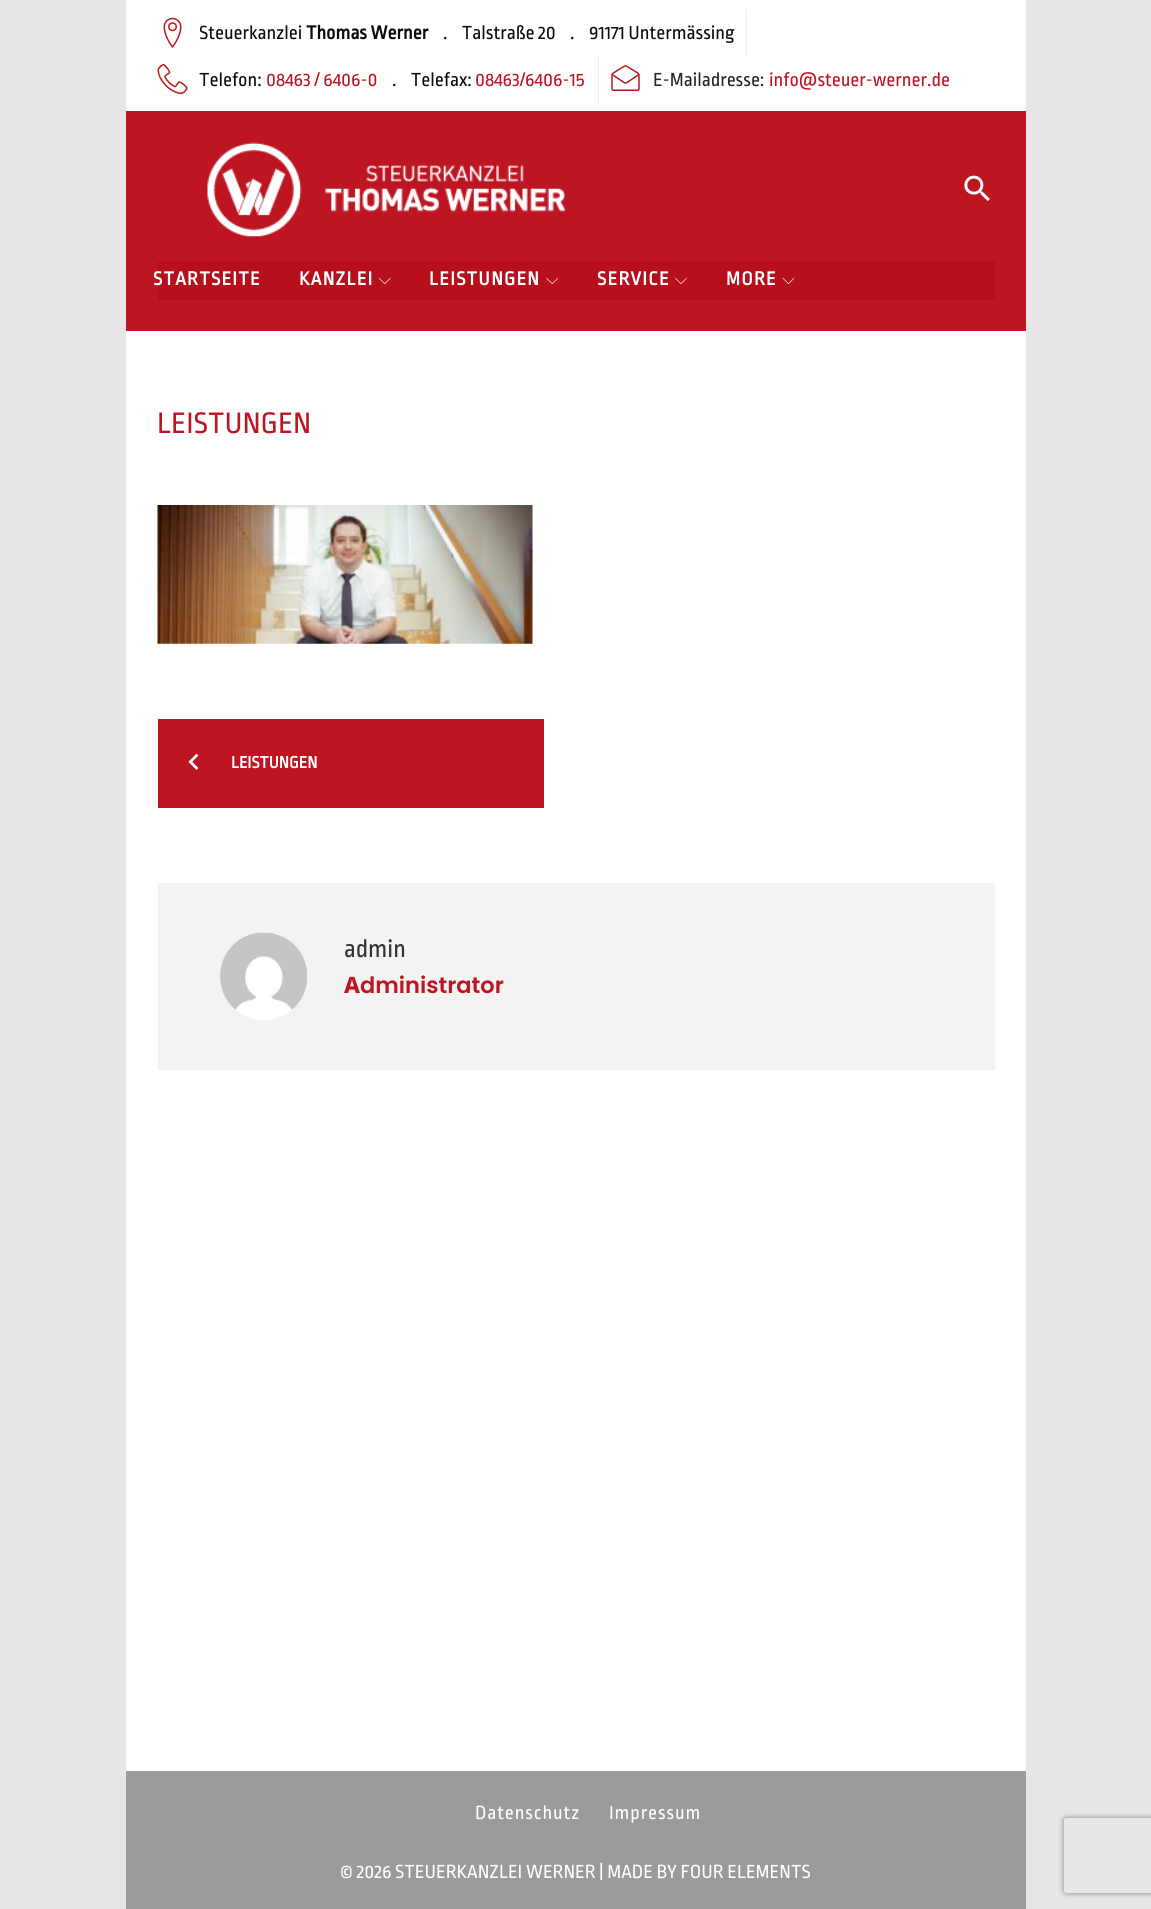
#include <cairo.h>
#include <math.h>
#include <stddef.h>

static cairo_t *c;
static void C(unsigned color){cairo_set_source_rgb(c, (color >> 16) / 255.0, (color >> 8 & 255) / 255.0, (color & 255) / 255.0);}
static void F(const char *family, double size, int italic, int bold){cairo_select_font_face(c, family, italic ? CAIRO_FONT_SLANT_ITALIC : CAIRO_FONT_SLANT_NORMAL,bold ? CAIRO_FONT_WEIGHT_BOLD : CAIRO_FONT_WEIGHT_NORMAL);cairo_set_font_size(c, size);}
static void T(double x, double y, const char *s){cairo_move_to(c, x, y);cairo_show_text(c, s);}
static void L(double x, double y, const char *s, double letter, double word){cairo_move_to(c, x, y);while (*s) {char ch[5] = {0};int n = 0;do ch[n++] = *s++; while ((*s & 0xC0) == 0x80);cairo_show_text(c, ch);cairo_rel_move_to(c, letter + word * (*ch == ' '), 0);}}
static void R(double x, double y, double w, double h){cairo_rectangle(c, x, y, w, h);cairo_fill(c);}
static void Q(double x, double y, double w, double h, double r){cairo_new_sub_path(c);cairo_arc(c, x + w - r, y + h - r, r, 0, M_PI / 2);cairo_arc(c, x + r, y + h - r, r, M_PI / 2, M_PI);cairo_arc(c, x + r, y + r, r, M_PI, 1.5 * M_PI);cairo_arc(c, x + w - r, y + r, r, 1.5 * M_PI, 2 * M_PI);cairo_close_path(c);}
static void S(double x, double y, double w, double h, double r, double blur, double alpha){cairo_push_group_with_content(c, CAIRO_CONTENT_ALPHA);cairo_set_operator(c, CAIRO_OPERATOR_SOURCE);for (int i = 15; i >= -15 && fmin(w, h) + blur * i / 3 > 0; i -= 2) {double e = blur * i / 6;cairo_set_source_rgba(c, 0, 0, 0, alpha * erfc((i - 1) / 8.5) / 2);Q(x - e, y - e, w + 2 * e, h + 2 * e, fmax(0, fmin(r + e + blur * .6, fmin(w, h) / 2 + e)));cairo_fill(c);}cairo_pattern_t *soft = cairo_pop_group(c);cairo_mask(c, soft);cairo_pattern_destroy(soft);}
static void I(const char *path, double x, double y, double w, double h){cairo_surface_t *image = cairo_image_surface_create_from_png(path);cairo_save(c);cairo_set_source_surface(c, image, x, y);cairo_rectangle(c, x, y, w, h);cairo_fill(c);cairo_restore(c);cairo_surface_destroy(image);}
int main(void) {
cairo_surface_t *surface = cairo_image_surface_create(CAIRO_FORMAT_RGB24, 1151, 1909);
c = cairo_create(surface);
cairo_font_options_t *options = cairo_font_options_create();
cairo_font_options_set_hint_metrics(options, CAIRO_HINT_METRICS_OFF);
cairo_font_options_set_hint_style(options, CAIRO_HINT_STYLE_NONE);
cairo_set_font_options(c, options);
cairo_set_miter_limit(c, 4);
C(0xe6e6e6);
cairo_paint(c);
C(0xffffff);
R(126,0,900,111);
C(0xececee);
R(746,10,1,46);
I("1.png",163,17,19,31);
F("Ropa Sans",20,0,0);
C(0x0c0c0c);
T(199,39,"Steuerkanzlei");
F("Ropa Sans",20,0,1);
T(306,39,"Thomas Werner");
F("Ropa Sans",20,0,0);
T(443,39,".    Talstraße 20    .    91171 Untermässing");
C(0xececee);
R(598,56,1,47);
I("2.png",157,64,31,30);
C(0x0c0c0c);
T(199,86,"Telefon:");
C(0xbd1622);
T(266,86,"08463 / 6406-0");
C(0x0c0c0c);
T(392,86,".    Telefax:");
C(0xbd1622);
T(475,86,"08463/6406-15");
I("3.png",611,65,29,26);
C(0x252525);
T(653,86,"E-Mailadresse:");
C(0xbd1622);
T(769,86,"info@steuer-werner.de");
R(126,111,900,220);
I("4.png",207,142,358,95);
I("5.png",964,175,26,26);
C(0xb7101c);
R(158,261,837,39);
F("Ropa Sans",20,0,1);
C(0xffffff);
L(153,285,"STARTSEITE",1.25,0);
L(299,285,"KANZLEI",1.25,0);
I("6.png",378,277,13,7);
L(429,285,"LEISTUNGEN",1.25,0);
I("7.png",546,277,13,7);
L(597,285,"SERVICE",1.25,0);
I("8.png",675,277,12,7);
L(726,285,"MORE",1.25,0);
I("9.png",782,277,13,7);
R(126,331,900,1440);
F("Ropa Sans",31.25,0,0);
C(0xbd1622);
T(157,433,"LEISTUNGEN");
I("10.png",157,505,376,139);
R(158,719,386,89);
I("11.png",188,753,11,17);
F("Ropa Sans",17.5,0,1);
C(0xffffff);
T(231,768,"LEISTUNGEN");
C(0xf3f3f3);
R(158,883,837,187);
I("12.png",220,932,88,88);
F("Ropa Sans",26,0,0);
C(0x333333);
T(344,957,"admin");
F("Noto Sans ExtraBold",22.5,0,0);
C(0xbd1622);
T(344,993,"A");
F("Poppins SemiBold",22.5,0,0);
T(360,993,"dministrator");
C(0x9c9b9b);
R(126,1771,900,138);
F("Ropa Sans",20,0,0);
C(0xffffff);
L(475,1819,"Datenschutz",.9,0);
L(609,1819,"Impressum",.9,0);
T(340,1878,"© 2026 STEUERKANZLEI WERNER | MADE BY FOUR ELEMENTS");
cairo_save(c);
cairo_set_fill_rule(c,CAIRO_FILL_RULE_EVEN_ODD);
cairo_new_path(c);
cairo_move_to(c,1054,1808);
cairo_line_to(c,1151,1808);
cairo_line_to(c,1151,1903);
cairo_line_to(c,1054,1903);
cairo_close_path(c);
cairo_move_to(c,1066.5,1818);
cairo_line_to(c,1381.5,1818);
cairo_curve_to(c,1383,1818,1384,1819,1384,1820.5);
cairo_line_to(c,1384,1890.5);
cairo_curve_to(c,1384,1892,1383,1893,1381.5,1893);
cairo_line_to(c,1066.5,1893);
cairo_curve_to(c,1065,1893,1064,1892,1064,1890.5);
cairo_line_to(c,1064,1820.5);
cairo_curve_to(c,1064,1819,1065,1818,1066.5,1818);
cairo_close_path(c);
cairo_clip(c);
C(0x808080);
S(1064,1818,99,75,2.5,3,1);
cairo_restore(c);
cairo_surface_write_to_png(surface, "o.png");
cairo_font_options_destroy(options);
cairo_destroy(c);
cairo_surface_destroy(surface);
return 0;
}
